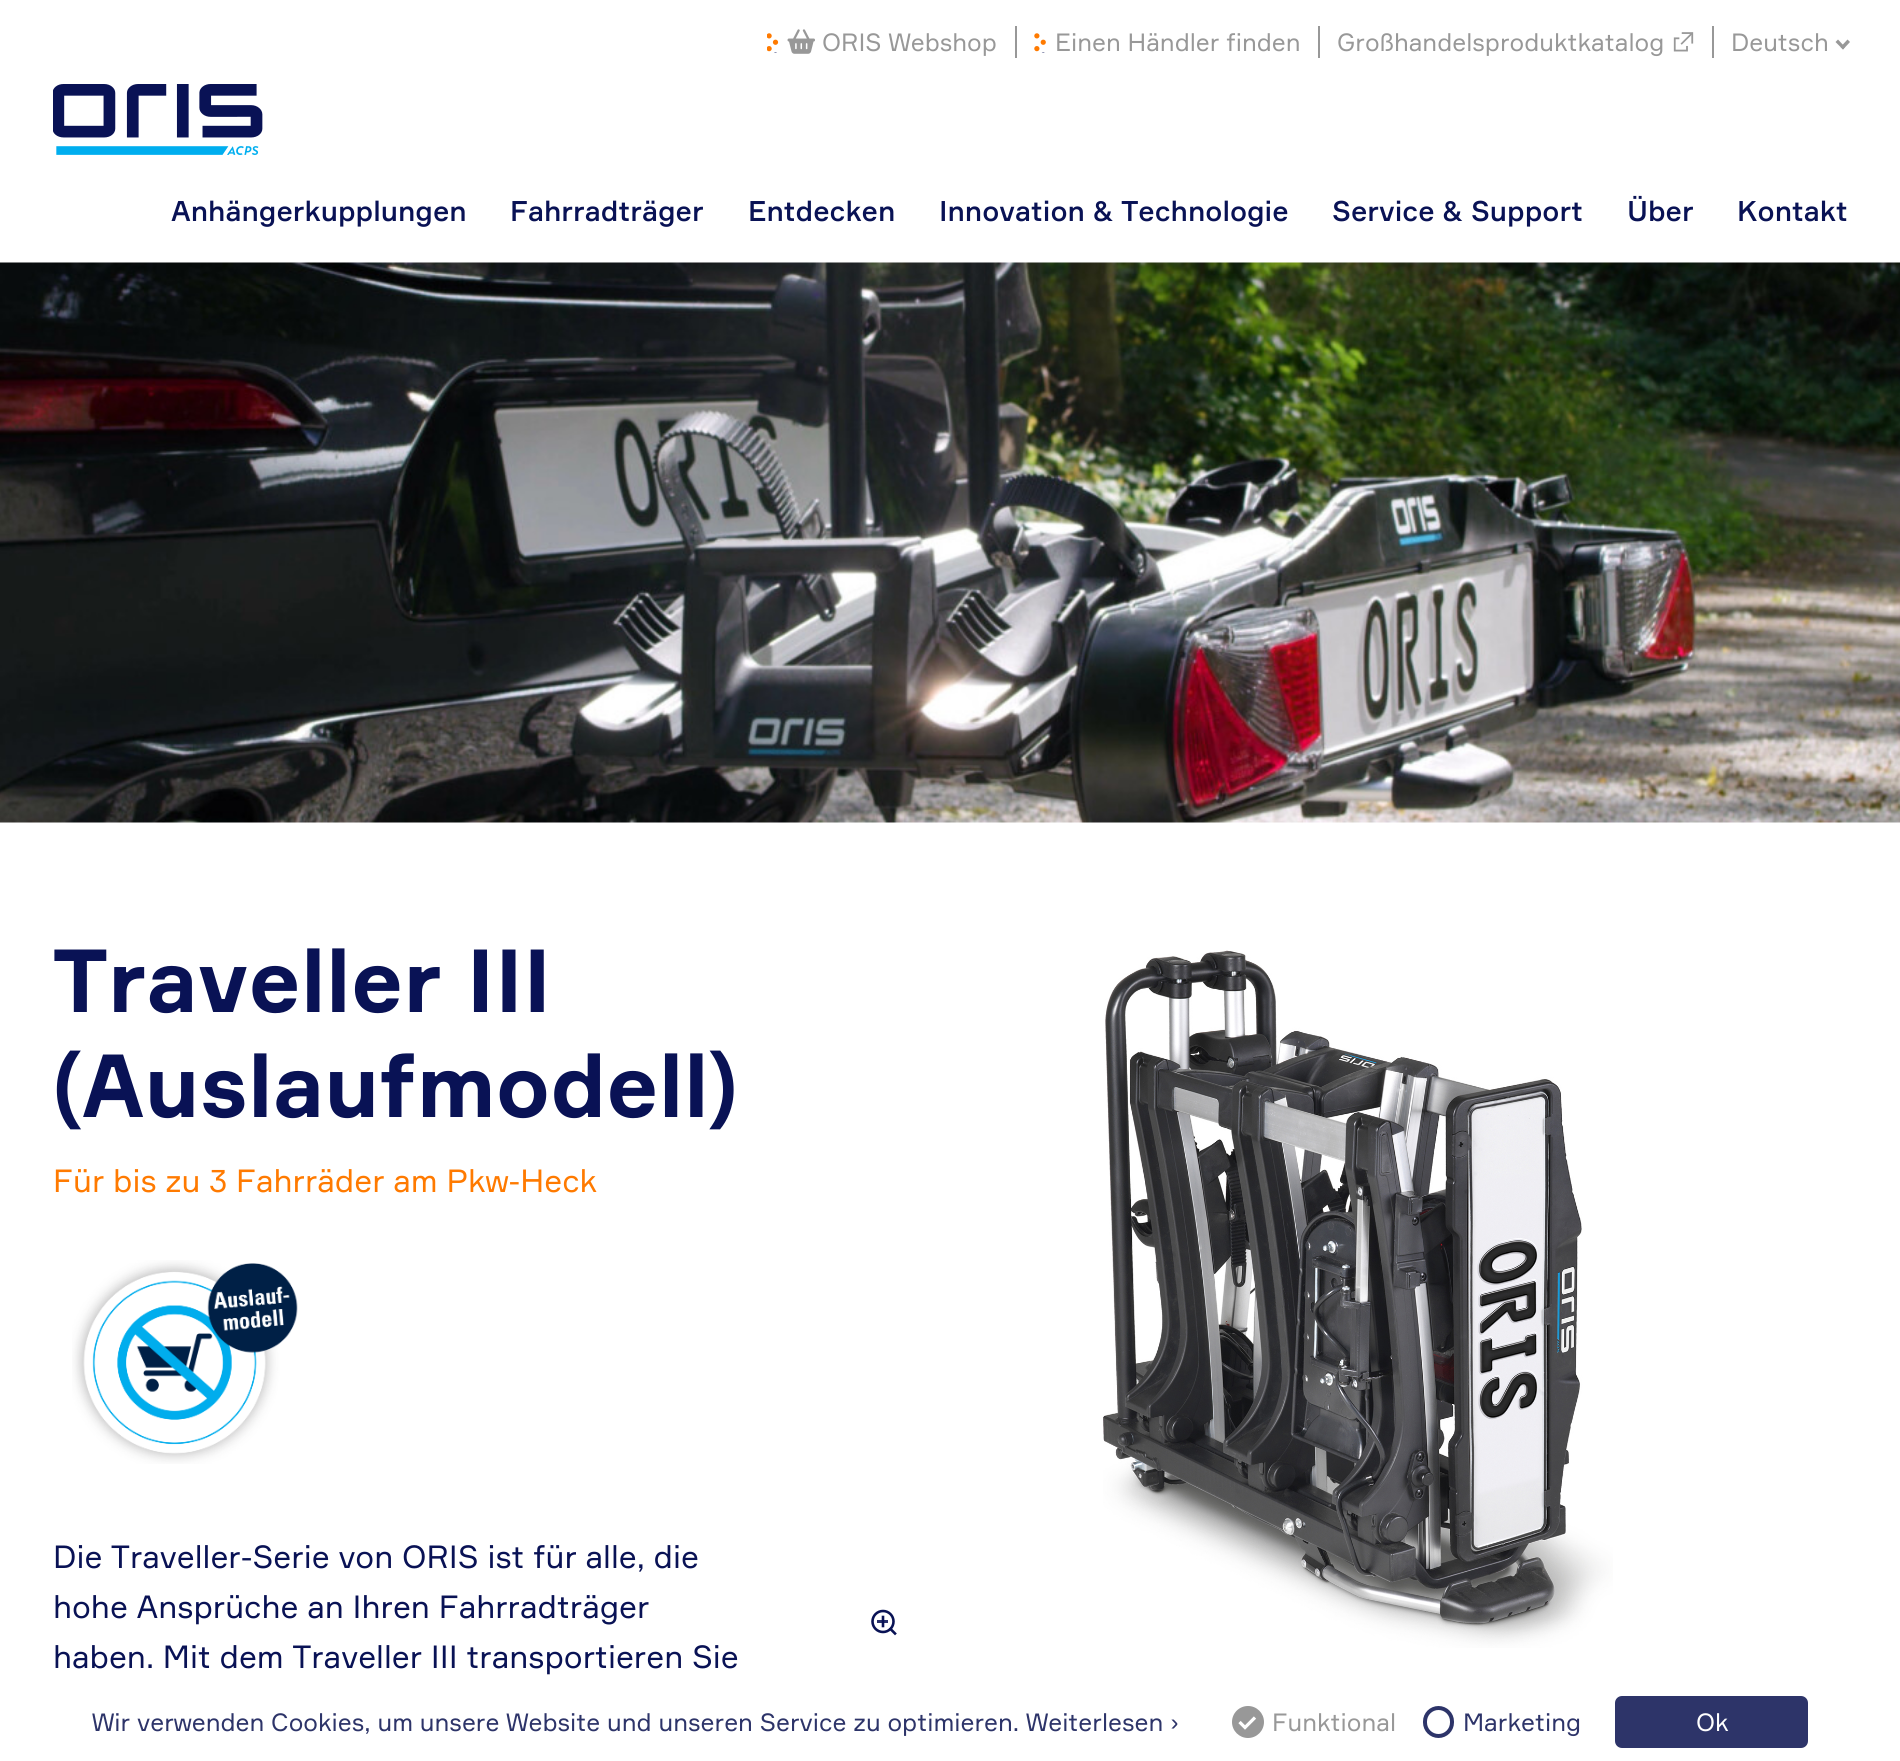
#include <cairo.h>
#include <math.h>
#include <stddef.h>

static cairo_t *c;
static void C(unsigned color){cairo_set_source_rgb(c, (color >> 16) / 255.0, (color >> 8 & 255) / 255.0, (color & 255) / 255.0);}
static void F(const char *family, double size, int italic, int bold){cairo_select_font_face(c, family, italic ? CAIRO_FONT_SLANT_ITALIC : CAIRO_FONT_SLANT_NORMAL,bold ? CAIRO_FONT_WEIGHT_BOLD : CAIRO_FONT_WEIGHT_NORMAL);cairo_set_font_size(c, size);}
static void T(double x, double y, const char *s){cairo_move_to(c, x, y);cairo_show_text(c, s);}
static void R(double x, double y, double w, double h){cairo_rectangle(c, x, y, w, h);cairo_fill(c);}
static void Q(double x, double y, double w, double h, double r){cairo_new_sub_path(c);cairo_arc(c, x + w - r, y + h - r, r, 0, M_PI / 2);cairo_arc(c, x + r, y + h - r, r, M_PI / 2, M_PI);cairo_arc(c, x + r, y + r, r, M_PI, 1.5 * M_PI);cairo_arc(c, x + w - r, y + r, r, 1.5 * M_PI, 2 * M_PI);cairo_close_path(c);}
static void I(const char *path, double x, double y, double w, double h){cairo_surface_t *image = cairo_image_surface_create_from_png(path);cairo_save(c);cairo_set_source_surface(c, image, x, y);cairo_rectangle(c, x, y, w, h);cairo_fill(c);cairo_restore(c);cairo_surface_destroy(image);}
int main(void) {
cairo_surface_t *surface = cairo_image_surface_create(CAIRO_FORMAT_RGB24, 1900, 1761);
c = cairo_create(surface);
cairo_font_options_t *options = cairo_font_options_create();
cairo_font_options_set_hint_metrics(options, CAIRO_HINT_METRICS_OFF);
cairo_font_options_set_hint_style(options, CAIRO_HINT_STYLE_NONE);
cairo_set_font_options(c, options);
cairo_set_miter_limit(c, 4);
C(0xffffff);
cairo_paint(c);
I("1.png",767,33,12,20);
I("2.png",787,29,28,25);
F("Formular",24.5,0,0);
C(0x989898);
T(822,51,"ORIS Webshop");
R(1015,26,2,32);
I("3.png",1034,33,12,20);
T(1055,51,"Einen Händler finden");
R(1318,26,2,32);
T(1337,51,"Großhandelsproduktkatalog");
I("4.png",1673,32,21,20);
R(1712,26,2,32);
T(1731,51,"Deutsch");
cairo_new_path(c);
cairo_move_to(c,1843,49.5);
cairo_line_to(c,1835.5,42);
cairo_line_to(c,1838,39.5);
cairo_line_to(c,1845,47);
cairo_close_path(c);
cairo_fill(c);
cairo_new_path(c);
cairo_move_to(c,1843,49.5);
cairo_line_to(c,1840.5,47);
cairo_line_to(c,1847.5,39.5);
cairo_line_to(c,1850,42);
cairo_close_path(c);
cairo_fill(c);
I("5.png",53,84,210,71);
F("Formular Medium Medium",28,0,0);
C(0x091255);
T(171,221,"Anhängerkupplungen");
T(510,221,"Fahrradträger");
T(748,221,"Entdecken");
T(939,221,"Innovation & Technologie");
T(1332,221,"Service & Support");
T(1627,221,"Über");
T(1737,221,"Kontakt");
I("6.png",0,262,1900,561);
F("Formular",87.5,0,1);
T(53,1012,"Traveller III");
T(53,1117,"(Auslaufmodell)");
F("Formular",31.5,0,0);
C(0xff7a00);
T(53,1192,"Für bis zu 3 Fahrräder am Pkw-Heck");
I("7.png",72,1260,226,204);
C(0x091255);
T(53,1568,"Die Traveller-Serie von ORIS ist für alle, die");
T(53,1618,"hohe Ansprüche an Ihren Fahrradträger");
T(53,1668,"haben. Mit dem Traveller III transportieren Sie");
cairo_new_path(c);
cairo_arc(c,883,1621.5,10.5,0,2 * M_PI);
cairo_set_line_width(c,2.6);
cairo_stroke(c);
cairo_new_path(c);
cairo_move_to(c,883,1617);
cairo_line_to(c,883,1626);
cairo_set_line_cap(c,CAIRO_LINE_CAP_SQUARE);
cairo_stroke(c);
cairo_set_source_rgba(c,0.035,0.071,0.333,0.87);
R(877,1620,11,3);
cairo_new_path(c);
cairo_move_to(c,890.5,1629);
cairo_line_to(c,895,1633.5);
C(0x091255);
cairo_stroke(c);
I("8.png",1103,950,510,698);
F("Formular",24.5,0,0);
C(0x2d3469);
T(92,1731,"Wir verwenden Cookies, um unsere Website und unseren Service zu optimieren. Weiterlesen ›");
C(0x989898);
cairo_new_path(c);
cairo_arc(c,1248,1722,16,0,2 * M_PI);
cairo_fill(c);
cairo_new_path(c);
cairo_move_to(c,1239.5,1722);
cairo_line_to(c,1245,1727.5);
cairo_line_to(c,1255,1717.5);
C(0xffffff);
cairo_set_line_width(c,3.2);
cairo_set_line_cap(c,CAIRO_LINE_CAP_BUTT);
cairo_stroke(c);
C(0x989898);
T(1272,1731,"Funktional");
Q(1425,1708,27,28,13.5);
C(0x2d3469);
cairo_set_line_width(c,4);
cairo_stroke(c);
T(1463,1731,"Marketing");
Q(1615,1696,193,52,7);
cairo_fill(c);
C(0xffffff);
T(1696,1731,"Ok");
cairo_surface_write_to_png(surface, "o.png");
cairo_font_options_destroy(options);
cairo_destroy(c);
cairo_surface_destroy(surface);
return 0;
}
